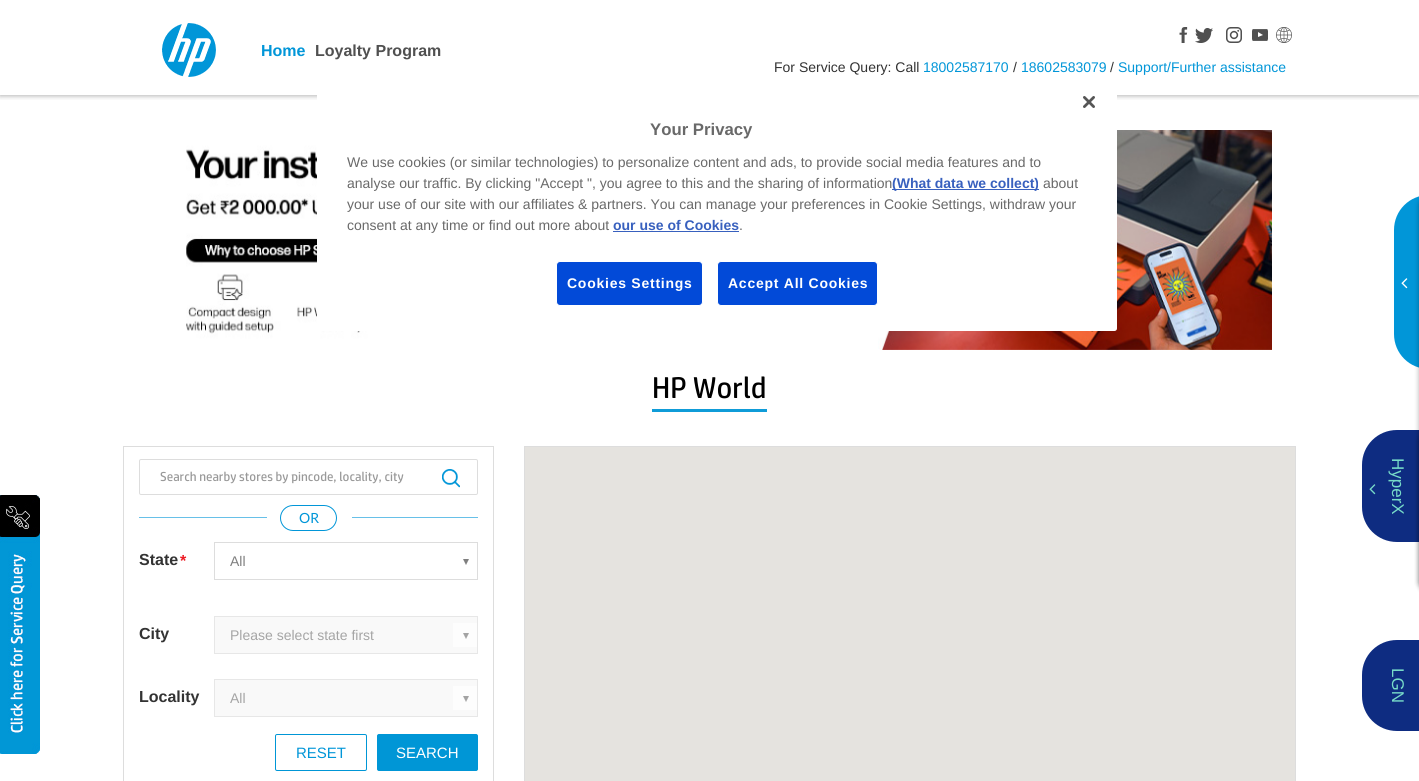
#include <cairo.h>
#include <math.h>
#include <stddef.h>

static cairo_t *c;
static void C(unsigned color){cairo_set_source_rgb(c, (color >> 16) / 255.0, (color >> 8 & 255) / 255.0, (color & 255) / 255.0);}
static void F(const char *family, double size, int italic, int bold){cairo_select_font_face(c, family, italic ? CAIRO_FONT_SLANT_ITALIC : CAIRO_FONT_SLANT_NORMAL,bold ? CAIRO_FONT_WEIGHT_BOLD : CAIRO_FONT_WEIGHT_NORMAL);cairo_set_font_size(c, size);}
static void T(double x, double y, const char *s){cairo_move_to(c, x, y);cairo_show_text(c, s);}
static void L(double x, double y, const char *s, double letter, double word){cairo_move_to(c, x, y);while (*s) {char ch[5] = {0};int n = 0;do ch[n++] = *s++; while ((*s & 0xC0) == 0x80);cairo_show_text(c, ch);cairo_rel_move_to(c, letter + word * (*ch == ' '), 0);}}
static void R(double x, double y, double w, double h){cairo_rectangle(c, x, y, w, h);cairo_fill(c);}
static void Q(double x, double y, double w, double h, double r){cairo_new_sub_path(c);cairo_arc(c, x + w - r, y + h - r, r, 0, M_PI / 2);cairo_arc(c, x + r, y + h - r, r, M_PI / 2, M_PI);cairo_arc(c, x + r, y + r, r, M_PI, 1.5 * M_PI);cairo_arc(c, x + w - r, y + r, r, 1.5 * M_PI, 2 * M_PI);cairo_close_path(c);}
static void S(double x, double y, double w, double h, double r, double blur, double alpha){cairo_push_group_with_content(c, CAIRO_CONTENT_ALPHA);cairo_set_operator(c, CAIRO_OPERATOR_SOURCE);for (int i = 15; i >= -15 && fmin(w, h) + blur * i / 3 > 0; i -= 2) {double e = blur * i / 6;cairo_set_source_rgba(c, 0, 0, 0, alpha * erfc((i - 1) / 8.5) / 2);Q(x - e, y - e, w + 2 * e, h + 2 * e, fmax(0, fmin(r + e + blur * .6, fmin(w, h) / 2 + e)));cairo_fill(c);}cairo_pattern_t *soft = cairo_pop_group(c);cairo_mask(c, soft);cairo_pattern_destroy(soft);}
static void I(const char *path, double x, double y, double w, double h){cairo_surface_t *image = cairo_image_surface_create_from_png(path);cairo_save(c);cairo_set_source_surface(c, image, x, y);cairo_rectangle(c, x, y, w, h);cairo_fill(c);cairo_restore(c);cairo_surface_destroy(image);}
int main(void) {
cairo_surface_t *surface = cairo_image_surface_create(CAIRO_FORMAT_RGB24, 1419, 781);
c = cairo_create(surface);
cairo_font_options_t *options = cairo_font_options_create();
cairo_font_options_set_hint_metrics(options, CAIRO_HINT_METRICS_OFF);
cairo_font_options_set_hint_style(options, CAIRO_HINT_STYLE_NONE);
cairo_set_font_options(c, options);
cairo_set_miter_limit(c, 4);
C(0xffffff);
cairo_paint(c);
cairo_save(c);
cairo_rectangle(c,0,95,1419,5);
cairo_clip(c);
C(0x000000);
S(0,1,1419,95,0,2.5,.3);
cairo_restore(c);
I("1.png",162,23,54,54);
F("Liberation Sans",16,0,1);
C(0x0196d8);
T(261,56,"Home");
C(0x505050);
T(315,56,"Loyalty Program");
I("2.png",1179,27,9,16);
I("3.png",1195,28,18,15);
I("4.png",1226,27,16,16);
I("5.png",1252,29,16,12);
I("6.png",1276,27,16,16);
F("Liberation Sans",14,0,0);
C(0x333333);
T(774,72,"For Service Query: Call");
C(0x0196d8);
T(923,72,"18002587170");
C(0x333333);
T(1013,72,"/");
C(0x0196d8);
T(1021,72,"18602583079");
C(0x333333);
T(1110,72,"/");
C(0x0196d8);
T(1118,72,"Support/Further assistance");
I("9.png",186,130,1086,220);
C(0xffffff);
Q(317,78,800,253,2.5);
cairo_fill(c);
I("7.png",1083,96,12,12);
F("Liberation Sans",16.75,0,1);
C(0x696969);
T(650,135,"Your Privacy");
F("Liberation Sans",14,0,0);
T(347,167,"We use cookies (or similar technologies) to personalize content and ads, to provide social media features and to");
T(347,188,"analyse our traffic. By clicking \"Accept \", you agree to this and the sharing of information");
C(0x3860be);
R(892,189,147,1);
F("Liberation Sans",14,0,1);
T(892,188,"(What data we collect)");
F("Liberation Sans",14,0,0);
C(0x696969);
T(1043,188,"about");
T(347,209,"your use of our site with our affiliates & partners. You can manage your preferences in Cookie Settings, withdraw your");
T(347,230,"consent at any time or find out more about");
F("Liberation Sans",14,0,1);
C(0x3860be);
T(613,230,"our use of Cookies");
R(613,231,126,1);
F("Liberation Sans",14,0,0);
C(0x696969);
T(739,230,".");
C(0x024ad8);
Q(556.5,261.5,146,44,3.5);
cairo_fill_preserve(c);
C(0xffffff);
cairo_set_line_width(c,1);
cairo_stroke(c);
F("Liberation Sans",14,0,1);
L(567,288,"Cookies Settings",.75,0);
C(0x024ad8);
Q(717.5,261.5,160,44,3.5);
cairo_fill_preserve(c);
C(0xffffff);
cairo_stroke(c);
L(728,288,"Accept All Cookies",.75,0);
C(0x0196d8);
cairo_new_path(c);
cairo_move_to(c,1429,195);
cairo_line_to(c,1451,195);
cairo_line_to(c,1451,369);
cairo_line_to(c,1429,369);
cairo_curve_to(c,1409.5,369,1394,353.5,1394,334);
cairo_line_to(c,1394,230);
cairo_curve_to(c,1394,210.5,1409.5,195,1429,195);
cairo_close_path(c);
cairo_fill(c);
C(0x0e2c81);
cairo_new_path(c);
cairo_move_to(c,1397,430);
cairo_line_to(c,1419,430);
cairo_line_to(c,1419,542);
cairo_line_to(c,1397,542);
cairo_curve_to(c,1377.5,542,1362,526.5,1362,507);
cairo_line_to(c,1362,465);
cairo_curve_to(c,1362,445.5,1377.5,430,1397,430);
cairo_close_path(c);
cairo_fill(c);
C(0x000000);
S(1419,196,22,396,14,2.5,.3);
I("8.png",1401,278,7,11);
C(0x0f9cd8);
R(652,409,115,3);
F("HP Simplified",30,0,0);
C(0x000000);
T(652,398,"HP World");
I("10.png",0,495,40,259);
cairo_rectangle(c,123.5,446.5,370,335);
C(0xdddddd);
cairo_stroke(c);
Q(139.5,459.5,338,35,1.5);
cairo_stroke(c);
F("HP Simplified",13,0,0);
C(0x999999);
T(160,481,"Search nearby stores by pincode, locality, city");
I("11.png",442,469,18,19);
C(0x67c0e8);
R(139,517,339,1);
C(0xffffff);
R(267,517,85,1);
Q(280.5,505.5,56,25,12.5);
C(0x0196d8);
cairo_stroke(c);
F("Lato",14,0,0);
T(299,523,"OR");
F("Liberation Sans",16,0,1);
C(0x333333);
T(139,565,"State");
C(0xed1b24);
T(180,566,"*");
I("12.png",463,559,6,6);
cairo_rectangle(c,214.5,542.5,263,37);
C(0xdddddd);
cairo_stroke(c);
F("Liberation Sans",14,0,0);
C(0x7f7f7f);
T(230,566,"All");
F("Liberation Sans",16,0,1);
C(0x333333);
T(139,639,"City");
C(0xf9f9f9);
R(215,617,262,36);
I("13.png",453,623,24,24);
cairo_rectangle(c,214.5,616.5,263,37);
C(0xe7e7e7);
cairo_stroke(c);
F("Liberation Sans",14,0,0);
C(0xa5a5a5);
T(230,640,"Please select state first");
F("Liberation Sans",16,0,1);
C(0x333333);
T(139,702,"Locality");
C(0xf9f9f9);
R(215,680,262,36);
I("13.png",453,686,24,24);
cairo_rectangle(c,214.5,679.5,263,37);
C(0xe7e7e7);
cairo_stroke(c);
F("Liberation Sans",14,0,0);
C(0xa5a5a5);
T(230,703,"All");
Q(275.5,734.5,91,36,1.5);
C(0x0096d6);
cairo_stroke(c);
F("Liberation Sans",15,0,0);
C(0x0196d8);
T(296,758,"RESET");
C(0x0096d6);
Q(377.5,734.5,100,36,1.5);
cairo_fill_preserve(c);
cairo_stroke(c);
C(0xffffff);
T(396,758,"SEARCH");
cairo_rectangle(c,524.5,446.5,771,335);
C(0xdddddd);
cairo_stroke(c);
C(0xe5e3df);
R(525,447,770,334);
I("14.png",1369,484,7,11);
F("Liberation Sans",17,0,0);
C(0x77dbc8);
cairo_save(c);
cairo_translate(c,1392,458);
cairo_rotate(c,90 * M_PI / 180);
T(0,0,"HyperX");
cairo_restore(c);
C(0x000000);
S(1419,431,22,160,14,2.5,.3);
C(0x0e2c81);
cairo_new_path(c);
cairo_move_to(c,1397,640);
cairo_line_to(c,1419,640);
cairo_line_to(c,1419,731);
cairo_line_to(c,1397,731);
cairo_curve_to(c,1377.5,731,1362,715.5,1362,696);
cairo_line_to(c,1362,675);
cairo_curve_to(c,1362,655.5,1377.5,640,1397,640);
cairo_close_path(c);
cairo_fill(c);
C(0x77dbc8);
cairo_save(c);
cairo_translate(c,1392,668);
cairo_rotate(c,90 * M_PI / 180);
T(0,0,"LGN");
cairo_restore(c);
cairo_surface_write_to_png(surface, "o.png");
cairo_font_options_destroy(options);
cairo_destroy(c);
cairo_surface_destroy(surface);
return 0;
}
